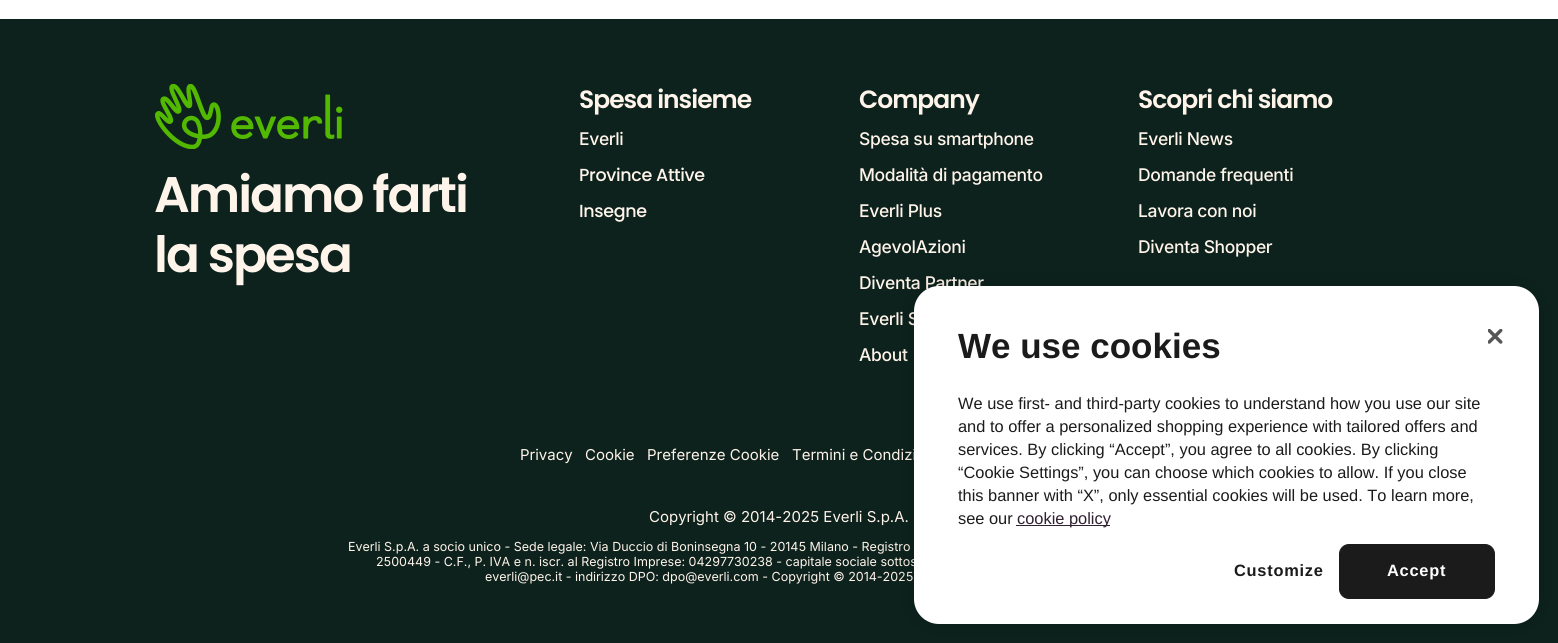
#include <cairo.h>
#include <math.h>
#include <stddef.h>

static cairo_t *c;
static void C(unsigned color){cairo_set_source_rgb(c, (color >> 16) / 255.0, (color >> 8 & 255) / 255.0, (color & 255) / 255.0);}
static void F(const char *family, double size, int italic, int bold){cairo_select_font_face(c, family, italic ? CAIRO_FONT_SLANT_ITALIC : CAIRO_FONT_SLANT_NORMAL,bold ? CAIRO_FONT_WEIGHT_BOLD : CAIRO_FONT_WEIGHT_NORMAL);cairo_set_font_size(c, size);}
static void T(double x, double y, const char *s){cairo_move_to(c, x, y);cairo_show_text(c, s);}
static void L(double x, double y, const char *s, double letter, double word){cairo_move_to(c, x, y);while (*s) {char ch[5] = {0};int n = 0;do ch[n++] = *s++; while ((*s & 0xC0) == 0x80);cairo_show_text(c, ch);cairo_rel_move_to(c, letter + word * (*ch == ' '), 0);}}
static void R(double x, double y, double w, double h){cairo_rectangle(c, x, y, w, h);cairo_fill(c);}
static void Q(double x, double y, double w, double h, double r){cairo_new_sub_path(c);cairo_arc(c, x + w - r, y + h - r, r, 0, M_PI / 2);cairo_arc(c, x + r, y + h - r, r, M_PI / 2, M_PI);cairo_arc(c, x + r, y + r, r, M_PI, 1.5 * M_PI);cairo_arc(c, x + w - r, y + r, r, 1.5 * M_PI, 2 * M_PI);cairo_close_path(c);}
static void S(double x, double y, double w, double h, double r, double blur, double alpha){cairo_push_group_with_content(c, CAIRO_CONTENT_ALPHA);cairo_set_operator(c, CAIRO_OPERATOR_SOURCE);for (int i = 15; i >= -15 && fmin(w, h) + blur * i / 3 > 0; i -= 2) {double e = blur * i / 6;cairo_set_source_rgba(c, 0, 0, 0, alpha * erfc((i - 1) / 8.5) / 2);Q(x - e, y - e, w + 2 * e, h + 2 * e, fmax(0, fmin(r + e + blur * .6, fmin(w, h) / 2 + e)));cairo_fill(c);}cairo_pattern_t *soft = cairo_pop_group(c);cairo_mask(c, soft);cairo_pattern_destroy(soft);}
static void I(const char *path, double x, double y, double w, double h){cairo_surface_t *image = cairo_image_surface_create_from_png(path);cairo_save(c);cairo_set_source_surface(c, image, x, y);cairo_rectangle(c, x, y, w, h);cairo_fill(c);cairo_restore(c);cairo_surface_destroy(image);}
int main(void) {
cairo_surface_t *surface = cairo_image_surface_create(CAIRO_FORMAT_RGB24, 1558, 643);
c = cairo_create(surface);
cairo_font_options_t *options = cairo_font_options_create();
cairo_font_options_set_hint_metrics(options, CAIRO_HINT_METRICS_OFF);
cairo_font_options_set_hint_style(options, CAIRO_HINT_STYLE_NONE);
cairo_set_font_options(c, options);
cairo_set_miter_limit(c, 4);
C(0xffffff);
cairo_paint(c);
C(0x0d221d);
R(0,19,1558,624);
I("1.png",155,84,188,65);
F("Poppins SemiBold",50,0,0);
C(0xfff4ea);
L(154,212,"Amiamo farti",-2,0);
L(154,272,"la spesa",-2,0);
F("Poppins SemiBold",25,0,0);
L(579,108,"Spesa insieme",-1,0);
F("Inter Medium",17.5,0,0);
L(579,145,"Everli",-.35,0);
F("Poppins Medium",17.5,0,0);
L(579,181,"Province Attive",-.35,0);
L(579,217,"Insegne",-.35,0);
F("Poppins SemiBold",25,0,0);
L(859,108,"Company",-1,0);
F("Inter Medium",17.5,0,0);
L(859,145,"Spesa su smartphone",-.35,0);
L(859,181,"Modalità di pagamento",-.35,0);
L(859,217,"Everli Plus",-.35,0);
L(859,253,"AgevolAzioni",-.35,0);
L(859,289,"Diventa Partner",-.35,0);
L(859,325,"Everli S",-.35,0);
L(859,361,"About",-.35,0);
F("Poppins SemiBold",25,0,0);
L(1138,108,"Scopri chi siamo",-1,0);
F("Inter Medium",17.5,0,0);
L(1138,145,"Everli News",-.35,0);
L(1138,181,"Domande frequenti",-.35,0);
L(1138,217,"Lavora con noi",-.35,0);
L(1138,253,"Diventa Shopper",-.35,0);
F("Inter",15,0,0);
T(520,460,"Privacy");
T(585,460,"Cookie");
T(647,460,"Preferenze Cookie");
T(792,460,"Termini e Condizi");
T(649,522,"Copyright © 2014-2025 Everli S.p.A.");
F("Inter",12.5,0,0);
T(348,551,"Everli S.p.A. a socio unico - Sede legale: Via Duccio di Boninsegna 10 - 20145 Milano - Registro");
T(376,566,"2500449 - C.F., P. IVA e n. iscr. al Registro Imprese: 04297730238 - capitale sociale sottos");
T(485,581,"everli@pec.it - indirizzo DPO: dpo@everli.com - Copyright © 2014-2025");
C(0x000000);
S(914,286,625,338,25,11,.2);
C(0xffffff);
Q(914,286,625,338,25);
cairo_fill(c);
F("Liberation Sans",35,0,1);
C(0x1b1b1b);
T(958,358,"We use cookies");
F("Liberation Sans",16.4,0,0);
T(958,409,"We use first- and third-party cookies to understand how you use our site");
T(958,432,"and to offer a personalized shopping experience with tailored offers and");
T(958,455,"services. By clicking “Accept”, you agree to all cookies. By clicking");
T(958,478,"“Cookie Settings”, you can choose which cookies to allow. If you close");
T(958,501,"this banner with “X”, only essential cookies will be used. To learn more,");
T(958,524,"see our");
C(0x302030);
R(1016,525,94,1);
T(1017,524,"cookie policy");
I("2.png",1488,329,15,15);
F("Liberation Sans",16.4,0,1);
C(0x1b1b1b);
L(1234,576,"Customize",.75,0);
Q(1339.5,544.5,155,54,9.5);
cairo_fill_preserve(c);
cairo_set_line_width(c,1);
cairo_stroke(c);
C(0xffffff);
L(1387,576,"Accept",.75,0);
cairo_surface_write_to_png(surface, "o.png");
cairo_font_options_destroy(options);
cairo_destroy(c);
cairo_surface_destroy(surface);
return 0;
}
